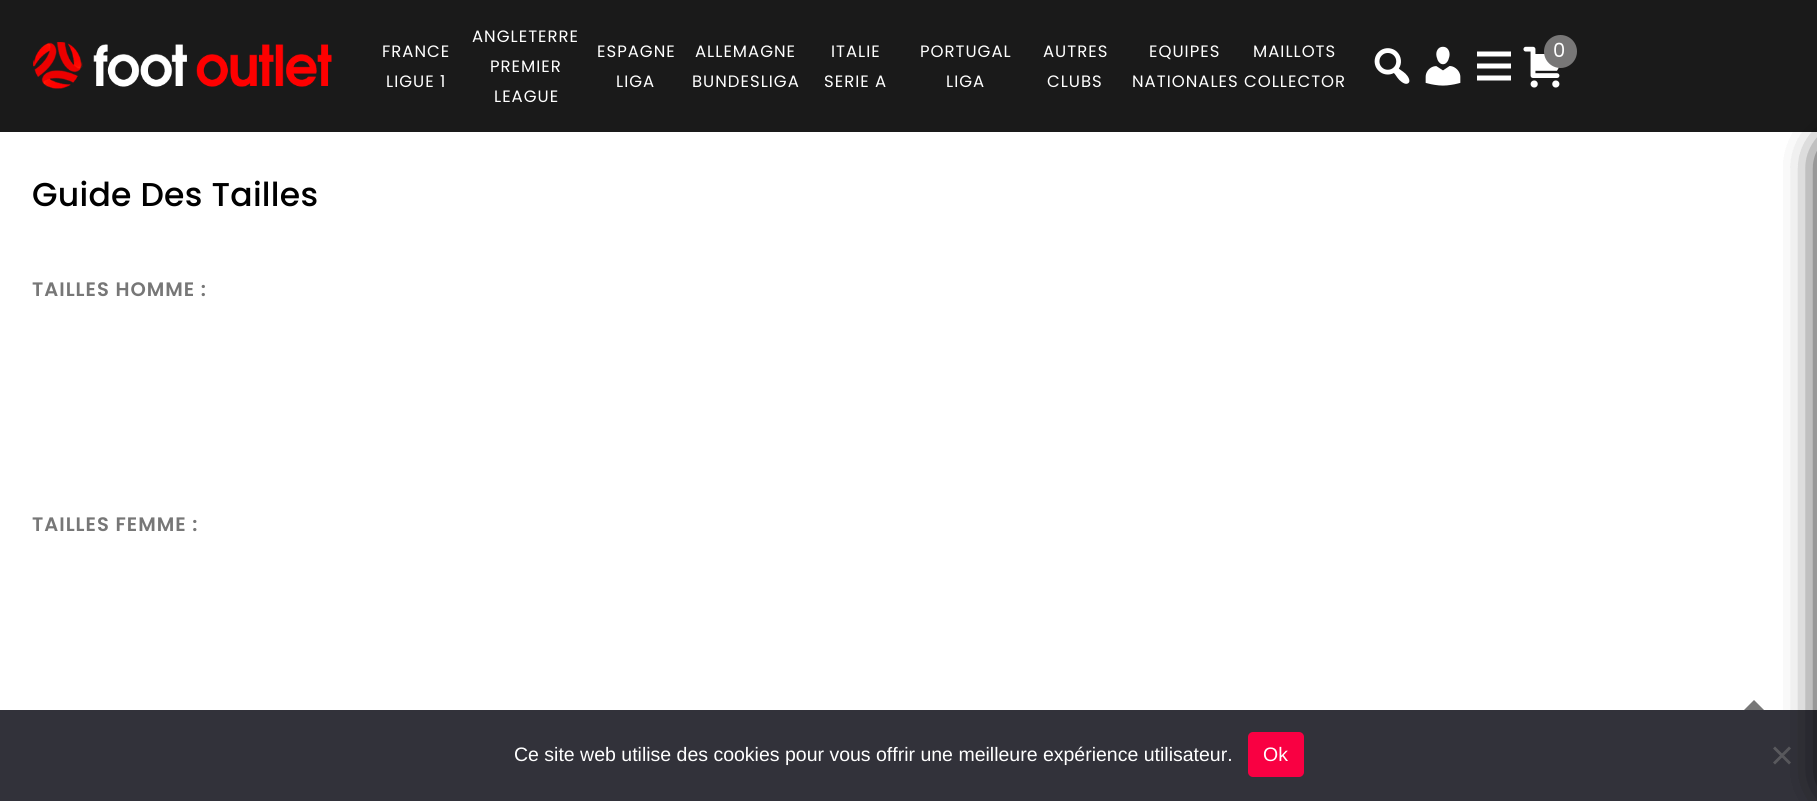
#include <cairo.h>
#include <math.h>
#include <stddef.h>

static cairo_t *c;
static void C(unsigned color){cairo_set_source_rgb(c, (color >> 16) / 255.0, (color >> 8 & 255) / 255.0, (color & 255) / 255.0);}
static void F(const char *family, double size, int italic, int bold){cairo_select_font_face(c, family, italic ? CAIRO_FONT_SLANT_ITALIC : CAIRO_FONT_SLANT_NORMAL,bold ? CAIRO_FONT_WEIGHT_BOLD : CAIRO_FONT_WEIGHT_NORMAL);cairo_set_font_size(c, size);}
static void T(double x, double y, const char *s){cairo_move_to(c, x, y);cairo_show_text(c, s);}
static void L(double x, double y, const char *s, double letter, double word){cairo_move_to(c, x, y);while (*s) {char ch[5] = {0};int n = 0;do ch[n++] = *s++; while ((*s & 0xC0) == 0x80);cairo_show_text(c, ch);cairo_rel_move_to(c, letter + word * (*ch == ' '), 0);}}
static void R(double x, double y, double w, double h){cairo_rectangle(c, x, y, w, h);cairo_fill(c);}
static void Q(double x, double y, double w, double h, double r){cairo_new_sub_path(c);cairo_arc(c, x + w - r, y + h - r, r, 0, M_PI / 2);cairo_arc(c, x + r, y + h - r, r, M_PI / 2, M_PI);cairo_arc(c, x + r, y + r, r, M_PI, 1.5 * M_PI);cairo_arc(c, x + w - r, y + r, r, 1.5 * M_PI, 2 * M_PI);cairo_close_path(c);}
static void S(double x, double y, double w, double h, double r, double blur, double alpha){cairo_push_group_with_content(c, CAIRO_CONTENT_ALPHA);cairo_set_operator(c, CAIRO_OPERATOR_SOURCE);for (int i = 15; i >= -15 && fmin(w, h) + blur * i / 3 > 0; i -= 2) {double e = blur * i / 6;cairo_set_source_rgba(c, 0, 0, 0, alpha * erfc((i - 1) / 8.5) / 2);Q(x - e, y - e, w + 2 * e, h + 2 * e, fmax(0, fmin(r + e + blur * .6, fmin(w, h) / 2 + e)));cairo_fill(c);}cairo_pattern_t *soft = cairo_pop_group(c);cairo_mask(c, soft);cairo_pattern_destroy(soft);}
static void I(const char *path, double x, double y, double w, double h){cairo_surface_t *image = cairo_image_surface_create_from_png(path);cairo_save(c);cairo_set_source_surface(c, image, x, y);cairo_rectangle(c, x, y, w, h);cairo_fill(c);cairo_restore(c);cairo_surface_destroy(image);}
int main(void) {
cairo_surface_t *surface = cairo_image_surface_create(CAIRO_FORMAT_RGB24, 1817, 801);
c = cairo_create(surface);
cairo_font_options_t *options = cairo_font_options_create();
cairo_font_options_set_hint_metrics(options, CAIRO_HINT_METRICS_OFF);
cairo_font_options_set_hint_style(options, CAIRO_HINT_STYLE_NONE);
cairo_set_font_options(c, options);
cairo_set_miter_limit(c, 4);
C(0xffffff);
cairo_paint(c);
C(0x1a1a1a);
R(0,0,1817,132);
I("1.png",33,42,299,47);
F("Poppins",16.5,0,0);
C(0xffffff);
L(382,57,"FRANCE",1,0);
L(386,87,"LIGUE 1",1,0);
L(472,42,"ANGLETERRE",1,0);
L(490,72,"PREMIER",1,0);
L(494,102,"LEAGUE",1,0);
L(597,57,"ESPAGNE",1,0);
L(616,87,"LIGA",1,0);
L(695,57,"ALLEMAGNE",1,0);
L(692,87,"BUNDESLIGA",1,0);
L(831,57,"ITALIE",1,0);
L(824,87,"SERIE A",1,0);
L(920,57,"PORTUGAL",1,0);
L(946,87,"LIGA",1,0);
L(1043,57,"AUTRES",1,0);
L(1047,87,"CLUBS",1,0);
L(1149,57,"EQUIPES",1,0);
L(1132,87,"NATIONALES",1,0);
L(1253,57,"MAILLOTS",1,0);
L(1244,87,"COLLECTOR",1,0);
I("2.png",1374,48,36,36);
I("3.png",1425,46,36,40);
cairo_new_path(c);
cairo_move_to(c,1477,68.5);
cairo_line_to(c,1511,68.5);
cairo_line_to(c,1511,63.5);
cairo_line_to(c,1477,63.5);
cairo_close_path(c);
cairo_move_to(c,1477,80.5);
cairo_line_to(c,1511,80.5);
cairo_line_to(c,1511,75.5);
cairo_line_to(c,1477,75.5);
cairo_close_path(c);
cairo_move_to(c,1477,51.5);
cairo_line_to(c,1477,56.5);
cairo_line_to(c,1511,56.5);
cairo_line_to(c,1511,51.5);
cairo_close_path(c);
cairo_fill(c);
I("4.png",1523,46,37,42);
C(0x787777);
cairo_arc(c,1560.5,51.5,16.5,0,2 * M_PI);
cairo_fill(c);
F("Poppins",19.5,0,0);
C(0xffffff);
L(1553,57,"0",1,0);
F("Poppins Medium",33,0,0);
C(0x000000);
L(32,206,"Guide Des Tailles",.25,0);
F("Poppins SemiBold",19.5,0,0);
C(0x777777);
L(32,296,"TAILLES HOMME :",1,0);
L(32,531,"TAILLES FEMME :",1,0);
C(0x000000);
S(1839,155,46,624,0,22.5,1);
C(0x777777);
cairo_new_path(c);
cairo_move_to(c,1754,700);
cairo_line_to(c,1791,737);
cairo_line_to(c,1754,774);
cairo_line_to(c,1717,737);
cairo_close_path(c);
cairo_fill(c);
C(0x32323a);
R(0,710,1817,91);
C(0x59595d);
cairo_new_path(c);
cairo_move_to(c,1789,746.5);
cairo_line_to(c,1791,748.5);
cairo_line_to(c,1775,764.5);
cairo_line_to(c,1773,762.5);
cairo_close_path(c);
cairo_fill(c);
cairo_new_path(c);
cairo_move_to(c,1773,748.5);
cairo_line_to(c,1775,746.5);
cairo_line_to(c,1791,762.5);
cairo_line_to(c,1789,764.5);
cairo_close_path(c);
cairo_fill(c);
C(0x000000);
S(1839,155,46,627,0,22.5,1);
F("Liberation Sans",19.5,0,0);
C(0xffffff);
T(514,761,"Ce site web utilise des cookies pour vous offrir une meilleure expérience utilisateur.");
C(0xf90042);
Q(1248,732,56,45,5);
cairo_fill(c);
C(0xffffff);
T(1263,761,"Ok");
C(0x000000);
S(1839,155,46,627,0,22.5,1);
cairo_surface_write_to_png(surface, "o.png");
cairo_font_options_destroy(options);
cairo_destroy(c);
cairo_surface_destroy(surface);
return 0;
}
